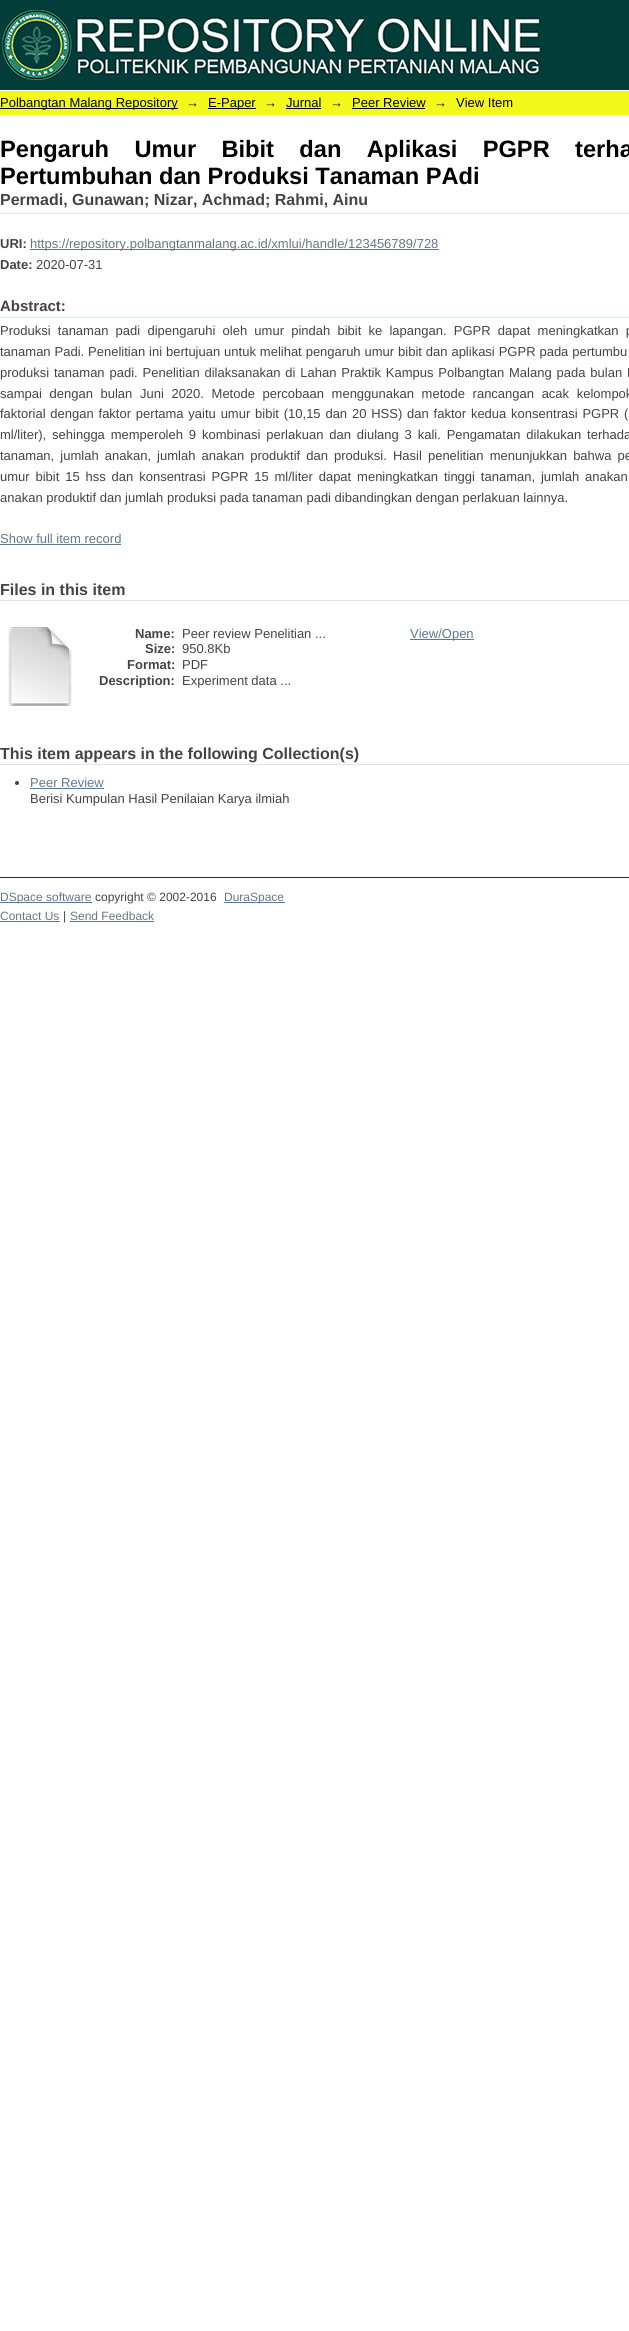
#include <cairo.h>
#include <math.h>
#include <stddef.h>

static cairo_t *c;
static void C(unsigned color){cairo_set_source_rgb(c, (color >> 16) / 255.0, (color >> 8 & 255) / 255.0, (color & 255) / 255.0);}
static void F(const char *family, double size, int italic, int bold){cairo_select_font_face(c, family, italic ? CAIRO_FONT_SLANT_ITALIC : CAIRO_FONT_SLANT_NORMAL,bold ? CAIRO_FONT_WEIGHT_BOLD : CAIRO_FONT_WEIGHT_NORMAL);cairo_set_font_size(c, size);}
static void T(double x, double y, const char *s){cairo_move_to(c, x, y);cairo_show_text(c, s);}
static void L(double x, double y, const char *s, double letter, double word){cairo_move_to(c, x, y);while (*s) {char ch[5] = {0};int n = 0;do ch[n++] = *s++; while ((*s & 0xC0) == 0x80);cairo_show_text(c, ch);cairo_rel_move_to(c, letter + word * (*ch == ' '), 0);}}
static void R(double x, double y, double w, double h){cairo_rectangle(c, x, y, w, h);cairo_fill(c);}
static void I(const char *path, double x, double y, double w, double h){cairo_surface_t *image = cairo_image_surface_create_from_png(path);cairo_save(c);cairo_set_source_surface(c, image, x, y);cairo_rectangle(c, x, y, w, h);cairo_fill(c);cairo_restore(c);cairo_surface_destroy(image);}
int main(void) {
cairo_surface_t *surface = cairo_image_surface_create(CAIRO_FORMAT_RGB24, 629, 2331);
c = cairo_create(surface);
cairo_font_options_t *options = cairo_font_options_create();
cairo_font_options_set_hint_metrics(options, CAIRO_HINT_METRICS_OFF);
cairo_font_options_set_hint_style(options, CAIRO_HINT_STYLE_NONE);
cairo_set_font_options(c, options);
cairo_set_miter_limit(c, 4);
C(0xffffff);
cairo_paint(c);
C(0x033d3a);
R(0,0,629,90);
I("1.png",0,10,542,70);
C(0xf3f81b);
R(0,91,629,24);
C(0x000000);
R(0,108,178,1);
F("Liberation Sans",13,0,0);
T(0,107,"Polbangtan Malang Repository");
T(186,107,"→");
R(208,108,48,1);
T(208,107,"E-Paper");
T(264,107,"→");
T(286,107,"Jurnal");
R(286,108,35,1);
T(330,107,"→");
T(352,107,"Peer Review");
R(352,108,73,1);
T(434,107,"→");
T(456,107,"View Item");
F("Liberation Sans",23.65,0,1);
L(0,157,"Pengaruh Umur Bibit dan Aplikasi PGPR terha",0,18.75);
T(0,184,"Pertumbuhan dan Produksi Tanaman PAdi");
C(0xd8e8eb);
R(0,213,629,1);
F("Liberation Sans",16,0,1);
C(0x444444);
T(0,205,"Permadi, Gunawan; Nizar, Achmad; Rahmi, Ainu");
F("Liberation Sans",13,0,1);
T(0,248,"URI:");
C(0x607890);
R(30,249,409,1);
F("Liberation Sans",13,0,0);
T(30,248,"https://repository.polbangtanmalang.ac.id/xmlui/handle/123456789/728");
F("Liberation Sans",13,0,1);
C(0x444444);
T(0,269,"Date:");
F("Liberation Sans",13,0,0);
T(36,269,"2020-07-31");
C(0xd8e8eb);
R(0,317,629,1);
F("Liberation Sans",15,0,1);
C(0x444444);
T(0,311,"Abstract:");
F("Liberation Sans",13,0,0);
L(0,335,"Produksi tanaman padi dipengaruhi oleh umur pindah bibit ke lapangan. PGPR dapat meningkatkan p",0,3.6);
L(0,356,"tanaman Padi. Penelitian ini bertujuan untuk melihat pengaruh umur bibit dan aplikasi PGPR pada pertumbu",0,.3);
L(0,377,"produksi tanaman padi. Penelitian dilaksanakan di Lahan Praktik Kampus Polbangtan Malang pada bulan F",0,1.25);
L(0,398,"sampai dengan bulan Juni 2020. Metode percobaan menggunakan metode rancangan acak kelompok",0,4);
L(0,418,"faktorial dengan faktor pertama yaitu umur bibit (10,15 dan 20 HSS) dan faktor kedua konsentrasi PGPR (",0,1.2);
L(0,439,"ml/liter), sehingga memperoleh 9 kombinasi perlakuan dan diulang 3 kali. Pengamatan dilakukan terhada",0,2.25);
L(0,460,"tanaman, jumlah anakan, jumlah anakan produktif dan produksi. Hasil penelitian menunjukkan bahwa pe",0,2.5);
L(0,481,"umur bibit 15 hss dan konsentrasi PGPR 15 ml/liter dapat meningkatkan tinggi tanaman, jumlah anakan",0,2.25);
T(0,502,"anakan produktif dan jumlah produksi pada tanaman padi dibandingkan dengan perlakuan lainnya.");
C(0x607890);
T(0,543,"Show full item record");
R(0,544,121,1);
C(0xd8e8eb);
R(0,600,629,1);
F("Liberation Sans",16,0,1);
C(0x444444);
T(0,595,"Files in this item");
I("2.png",8,627,64,79);
F("Liberation Sans",13,0,1);
T(135,638,"Name:");
F("Liberation Sans",13,0,0);
T(182,638,"Peer review Penelitian ...");
F("Liberation Sans",13,0,1);
T(145,653,"Size:");
F("Liberation Sans",13,0,0);
T(182,653,"950.8Kb");
F("Liberation Sans",13,0,1);
T(127,669,"Format:");
F("Liberation Sans",13,0,0);
T(182,669,"PDF");
F("Liberation Sans",13,0,1);
T(99,685,"Description:");
F("Liberation Sans",13,0,0);
T(182,685,"Experiment data ...");
C(0x607890);
R(410,639,64,1);
T(410,638,"View/Open");
C(0xd8e8eb);
R(0,764,629,1);
F("Liberation Sans",16,0,1);
C(0x444444);
T(0,759,"This item appears in the following Collection(s)");
cairo_new_path(c);
cairo_arc(c,17,783,2,0,2 * M_PI);
cairo_fill(c);
F("Liberation Sans",13,0,0);
C(0x607890);
T(30,787,"Peer Review");
R(30,788,74,1);
C(0x444444);
T(30,803,"Berisi Kumpulan Hasil Penilaian Karya ilmiah");
C(0x033d3a);
R(0,877,629,1);
C(0x607890);
R(0,902,92,1);
F("Liberation Sans",12,0,0);
T(0,901,"DSpace software");
C(0x444444);
T(95,901,"copyright © 2002-2016");
C(0x607890);
R(224,902,61,1);
T(224,901,"DuraSpace");
T(0,920,"Contact Us");
R(0,921,60,1);
C(0x444444);
T(63,920,"|");
C(0x607890);
T(70,920,"Send Feedback");
R(70,921,84,1);
cairo_surface_write_to_png(surface, "o.png");
cairo_font_options_destroy(options);
cairo_destroy(c);
cairo_surface_destroy(surface);
return 0;
}
